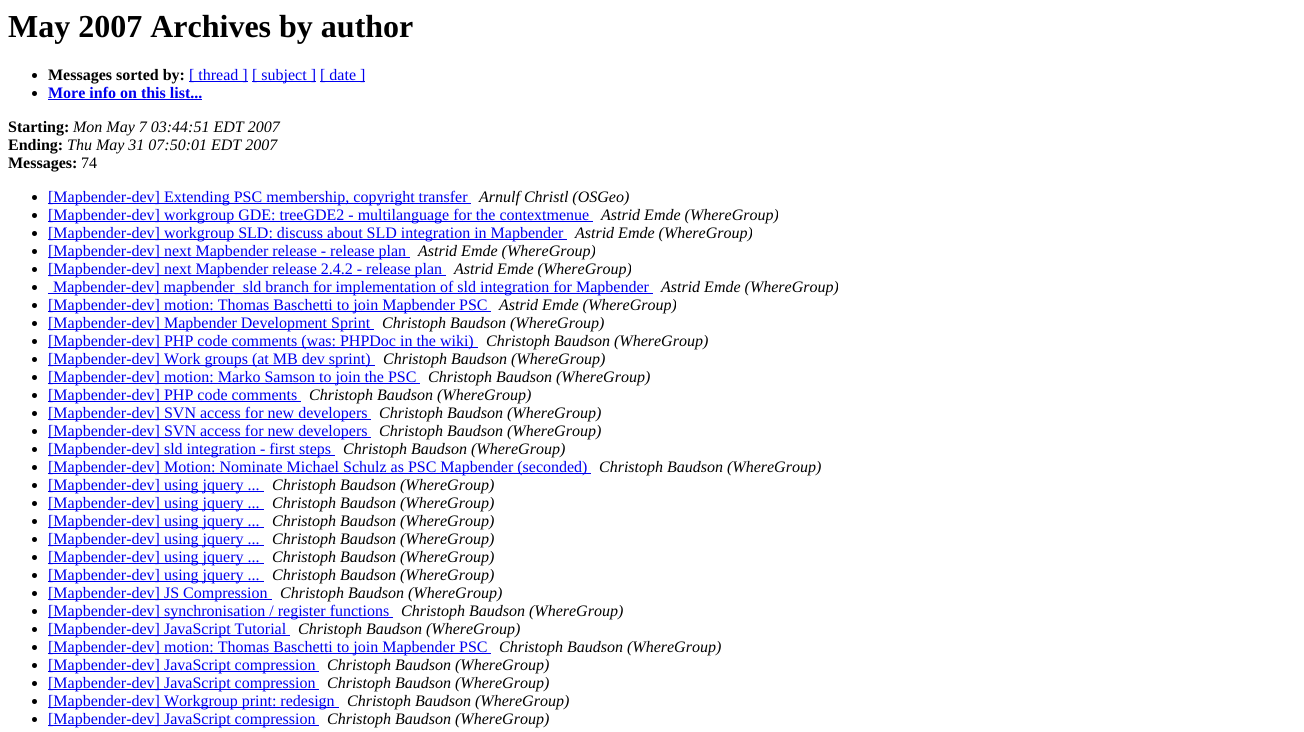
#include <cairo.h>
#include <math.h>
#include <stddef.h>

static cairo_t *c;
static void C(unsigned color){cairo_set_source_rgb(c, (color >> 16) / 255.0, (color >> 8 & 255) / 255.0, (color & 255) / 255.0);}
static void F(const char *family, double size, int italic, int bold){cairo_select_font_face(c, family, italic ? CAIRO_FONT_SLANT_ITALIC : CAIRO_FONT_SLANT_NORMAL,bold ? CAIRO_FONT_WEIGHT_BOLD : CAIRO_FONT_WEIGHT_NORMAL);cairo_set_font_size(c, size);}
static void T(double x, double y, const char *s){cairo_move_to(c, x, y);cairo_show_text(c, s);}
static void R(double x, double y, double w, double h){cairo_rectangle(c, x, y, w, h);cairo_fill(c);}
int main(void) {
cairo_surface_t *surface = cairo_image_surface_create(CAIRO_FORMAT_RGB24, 1304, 732);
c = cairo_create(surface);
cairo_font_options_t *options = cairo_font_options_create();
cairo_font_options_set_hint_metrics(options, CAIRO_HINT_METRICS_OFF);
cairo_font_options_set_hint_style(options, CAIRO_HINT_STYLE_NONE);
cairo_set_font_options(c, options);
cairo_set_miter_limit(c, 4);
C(0xffffff);
cairo_paint(c);
F("Liberation Serif",32,0,1);
C(0x000000);
T(8,37,"May 2007 Archives by author");
cairo_new_path(c);
cairo_arc(c,34.5,75.5,2.5,0,2 * M_PI);
cairo_fill(c);
F("Liberation Serif",16,0,1);
T(48,80,"Messages sorted by:");
C(0x0000ee);
R(189,81,59,1);
F("Liberation Serif",16,0,0);
T(189,80,"[ thread ]");
R(252,81,64,1);
T(252,80,"[ subject ]");
R(320,81,45,1);
T(320,80,"[ date ]");
C(0x000000);
cairo_new_path(c);
cairo_arc(c,34.5,93.5,2.5,0,2 * M_PI);
cairo_fill(c);
F("Liberation Serif",16,0,1);
C(0x0000ee);
T(48,98,"More info on this list...");
R(48,99,154,1);
C(0x000000);
T(8,132,"Starting:");
F("Liberation Serif",16,1,0);
T(73,132,"Mon May 7 03:44:51 EDT 2007");
F("Liberation Serif",16,0,1);
T(8,150,"Ending:");
F("Liberation Serif",16,1,0);
T(67,150,"Thu May 31 07:50:01 EDT 2007");
F("Liberation Serif",16,0,1);
T(8,168,"Messages:");
F("Liberation Serif",16,0,0);
T(81,168,"74");
cairo_new_path(c);
cairo_arc(c,34.5,197.5,2.5,0,2 * M_PI);
cairo_fill(c);
C(0x0000ee);
R(48,203,423,1);
T(48,202,"[Mapbender-dev] Extending PSC membership, copyright transfer");
F("Liberation Serif",16,1,0);
C(0x000000);
T(479,202,"Arnulf Christl (OSGeo)");
cairo_new_path(c);
cairo_arc(c,34.5,215.5,2.5,0,2 * M_PI);
cairo_fill(c);
C(0x0000ee);
R(48,221,545,1);
F("Liberation Serif",16,0,0);
T(48,220,"[Mapbender-dev] workgroup GDE: treeGDE2 - multilanguage for the contextmenue");
F("Liberation Serif",16,1,0);
C(0x000000);
T(601,220,"Astrid Emde (WhereGroup)");
cairo_new_path(c);
cairo_arc(c,34.5,233.5,2.5,0,2 * M_PI);
cairo_fill(c);
C(0x0000ee);
R(48,239,519,1);
F("Liberation Serif",16,0,0);
T(48,238,"[Mapbender-dev] workgroup SLD: discuss about SLD integration in Mapbender");
F("Liberation Serif",16,1,0);
C(0x000000);
T(575,238,"Astrid Emde (WhereGroup)");
cairo_new_path(c);
cairo_arc(c,34.5,251.5,2.5,0,2 * M_PI);
cairo_fill(c);
C(0x0000ee);
R(48,257,362,1);
F("Liberation Serif",16,0,0);
T(48,256,"[Mapbender-dev] next Mapbender release - release plan");
F("Liberation Serif",16,1,0);
C(0x000000);
T(418,256,"Astrid Emde (WhereGroup)");
cairo_new_path(c);
cairo_arc(c,34.5,269.5,2.5,0,2 * M_PI);
cairo_fill(c);
C(0x0000ee);
R(48,275,398,1);
F("Liberation Serif",16,0,0);
T(48,274,"[Mapbender-dev] next Mapbender release 2.4.2 - release plan");
F("Liberation Serif",16,1,0);
C(0x000000);
T(454,274,"Astrid Emde (WhereGroup)");
cairo_new_path(c);
cairo_arc(c,34.5,287.5,2.5,0,2 * M_PI);
cairo_fill(c);
C(0x0000ee);
R(48,293,605,1);
F("Liberation Serif",16,0,0);
T(53,292,"Mapbender-dev] mapbender_sld branch for implementation of sld integration for Mapbender");
F("Liberation Serif",16,1,0);
C(0x000000);
T(661,292,"Astrid Emde (WhereGroup)");
cairo_new_path(c);
cairo_arc(c,34.5,305.5,2.5,0,2 * M_PI);
cairo_fill(c);
C(0x0000ee);
R(48,311,443,1);
F("Liberation Serif",16,0,0);
T(48,310,"[Mapbender-dev] motion: Thomas Baschetti to join Mapbender PSC");
F("Liberation Serif",16,1,0);
C(0x000000);
T(499,310,"Astrid Emde (WhereGroup)");
cairo_new_path(c);
cairo_arc(c,34.5,323.5,2.5,0,2 * M_PI);
cairo_fill(c);
C(0x0000ee);
R(48,329,326,1);
F("Liberation Serif",16,0,0);
T(48,328,"[Mapbender-dev] Mapbender Development Sprint");
F("Liberation Serif",16,1,0);
C(0x000000);
T(382,328,"Christoph Baudson (WhereGroup)");
cairo_new_path(c);
cairo_arc(c,34.5,341.5,2.5,0,2 * M_PI);
cairo_fill(c);
C(0x0000ee);
R(48,347,430,1);
F("Liberation Serif",16,0,0);
T(48,346,"[Mapbender-dev] PHP code comments (was: PHPDoc in the wiki)");
F("Liberation Serif",16,1,0);
C(0x000000);
T(486,346,"Christoph Baudson (WhereGroup)");
cairo_new_path(c);
cairo_arc(c,34.5,359.5,2.5,0,2 * M_PI);
cairo_fill(c);
C(0x0000ee);
R(48,365,327,1);
F("Liberation Serif",16,0,0);
T(48,364,"[Mapbender-dev] Work groups (at MB dev sprint)");
F("Liberation Serif",16,1,0);
C(0x000000);
T(383,364,"Christoph Baudson (WhereGroup)");
cairo_new_path(c);
cairo_arc(c,34.5,377.5,2.5,0,2 * M_PI);
cairo_fill(c);
C(0x0000ee);
R(48,383,372,1);
F("Liberation Serif",16,0,0);
T(48,382,"[Mapbender-dev] motion: Marko Samson to join the PSC");
F("Liberation Serif",16,1,0);
C(0x000000);
T(428,382,"Christoph Baudson (WhereGroup)");
cairo_new_path(c);
cairo_arc(c,34.5,395.5,2.5,0,2 * M_PI);
cairo_fill(c);
C(0x0000ee);
R(48,401,253,1);
F("Liberation Serif",16,0,0);
T(48,400,"[Mapbender-dev] PHP code comments");
F("Liberation Serif",16,1,0);
C(0x000000);
T(309,400,"Christoph Baudson (WhereGroup)");
cairo_new_path(c);
cairo_arc(c,34.5,413.5,2.5,0,2 * M_PI);
cairo_fill(c);
C(0x0000ee);
R(48,419,323,1);
F("Liberation Serif",16,0,0);
T(48,418,"[Mapbender-dev] SVN access for new developers");
F("Liberation Serif",16,1,0);
C(0x000000);
T(379,418,"Christoph Baudson (WhereGroup)");
cairo_new_path(c);
cairo_arc(c,34.5,431.5,2.5,0,2 * M_PI);
cairo_fill(c);
C(0x0000ee);
R(48,437,323,1);
F("Liberation Serif",16,0,0);
T(48,436,"[Mapbender-dev] SVN access for new developers");
F("Liberation Serif",16,1,0);
C(0x000000);
T(379,436,"Christoph Baudson (WhereGroup)");
cairo_new_path(c);
cairo_arc(c,34.5,449.5,2.5,0,2 * M_PI);
cairo_fill(c);
C(0x0000ee);
R(48,455,287,1);
F("Liberation Serif",16,0,0);
T(48,454,"[Mapbender-dev] sld integration - first steps");
F("Liberation Serif",16,1,0);
C(0x000000);
T(343,454,"Christoph Baudson (WhereGroup)");
cairo_new_path(c);
cairo_arc(c,34.5,467.5,2.5,0,2 * M_PI);
cairo_fill(c);
C(0x0000ee);
R(48,473,543,1);
F("Liberation Serif",16,0,0);
T(48,472,"[Mapbender-dev] Motion: Nominate Michael Schulz as PSC Mapbender (seconded)");
F("Liberation Serif",16,1,0);
C(0x000000);
T(599,472,"Christoph Baudson (WhereGroup)");
cairo_new_path(c);
cairo_arc(c,34.5,485.5,2.5,0,2 * M_PI);
cairo_fill(c);
C(0x0000ee);
R(48,491,216,1);
F("Liberation Serif",16,0,0);
T(48,490,"[Mapbender-dev] using jquery ...");
F("Liberation Serif",16,1,0);
C(0x000000);
T(272,490,"Christoph Baudson (WhereGroup)");
cairo_new_path(c);
cairo_arc(c,34.5,503.5,2.5,0,2 * M_PI);
cairo_fill(c);
C(0x0000ee);
R(48,509,216,1);
F("Liberation Serif",16,0,0);
T(48,508,"[Mapbender-dev] using jquery ...");
F("Liberation Serif",16,1,0);
C(0x000000);
T(272,508,"Christoph Baudson (WhereGroup)");
cairo_new_path(c);
cairo_arc(c,34.5,521.5,2.5,0,2 * M_PI);
cairo_fill(c);
C(0x0000ee);
R(48,527,216,1);
F("Liberation Serif",16,0,0);
T(48,526,"[Mapbender-dev] using jquery ...");
F("Liberation Serif",16,1,0);
C(0x000000);
T(272,526,"Christoph Baudson (WhereGroup)");
cairo_new_path(c);
cairo_arc(c,34.5,539.5,2.5,0,2 * M_PI);
cairo_fill(c);
C(0x0000ee);
R(48,545,216,1);
F("Liberation Serif",16,0,0);
T(48,544,"[Mapbender-dev] using jquery ...");
F("Liberation Serif",16,1,0);
C(0x000000);
T(272,544,"Christoph Baudson (WhereGroup)");
cairo_new_path(c);
cairo_arc(c,34.5,557.5,2.5,0,2 * M_PI);
cairo_fill(c);
C(0x0000ee);
R(48,563,216,1);
F("Liberation Serif",16,0,0);
T(48,562,"[Mapbender-dev] using jquery ...");
F("Liberation Serif",16,1,0);
C(0x000000);
T(272,562,"Christoph Baudson (WhereGroup)");
cairo_new_path(c);
cairo_arc(c,34.5,575.5,2.5,0,2 * M_PI);
cairo_fill(c);
C(0x0000ee);
R(48,581,216,1);
F("Liberation Serif",16,0,0);
T(48,580,"[Mapbender-dev] using jquery ...");
F("Liberation Serif",16,1,0);
C(0x000000);
T(272,580,"Christoph Baudson (WhereGroup)");
cairo_new_path(c);
cairo_arc(c,34.5,593.5,2.5,0,2 * M_PI);
cairo_fill(c);
C(0x0000ee);
R(48,599,224,1);
F("Liberation Serif",16,0,0);
T(48,598,"[Mapbender-dev] JS Compression");
F("Liberation Serif",16,1,0);
C(0x000000);
T(280,598,"Christoph Baudson (WhereGroup)");
cairo_new_path(c);
cairo_arc(c,34.5,611.5,2.5,0,2 * M_PI);
cairo_fill(c);
C(0x0000ee);
R(48,617,345,1);
F("Liberation Serif",16,0,0);
T(48,616,"[Mapbender-dev] synchronisation / register functions");
F("Liberation Serif",16,1,0);
C(0x000000);
T(401,616,"Christoph Baudson (WhereGroup)");
cairo_new_path(c);
cairo_arc(c,34.5,629.5,2.5,0,2 * M_PI);
cairo_fill(c);
C(0x0000ee);
R(48,635,242,1);
F("Liberation Serif",16,0,0);
T(48,634,"[Mapbender-dev] JavaScript Tutorial");
F("Liberation Serif",16,1,0);
C(0x000000);
T(298,634,"Christoph Baudson (WhereGroup)");
cairo_new_path(c);
cairo_arc(c,34.5,647.5,2.5,0,2 * M_PI);
cairo_fill(c);
C(0x0000ee);
R(48,653,443,1);
F("Liberation Serif",16,0,0);
T(48,652,"[Mapbender-dev] motion: Thomas Baschetti to join Mapbender PSC");
F("Liberation Serif",16,1,0);
C(0x000000);
T(499,652,"Christoph Baudson (WhereGroup)");
cairo_new_path(c);
cairo_arc(c,34.5,665.5,2.5,0,2 * M_PI);
cairo_fill(c);
C(0x0000ee);
R(48,671,271,1);
F("Liberation Serif",16,0,0);
T(48,670,"[Mapbender-dev] JavaScript compression");
F("Liberation Serif",16,1,0);
C(0x000000);
T(327,670,"Christoph Baudson (WhereGroup)");
cairo_new_path(c);
cairo_arc(c,34.5,683.5,2.5,0,2 * M_PI);
cairo_fill(c);
C(0x0000ee);
R(48,689,271,1);
F("Liberation Serif",16,0,0);
T(48,688,"[Mapbender-dev] JavaScript compression");
F("Liberation Serif",16,1,0);
C(0x000000);
T(327,688,"Christoph Baudson (WhereGroup)");
cairo_new_path(c);
cairo_arc(c,34.5,701.5,2.5,0,2 * M_PI);
cairo_fill(c);
C(0x0000ee);
R(48,707,291,1);
F("Liberation Serif",16,0,0);
T(48,706,"[Mapbender-dev] Workgroup print: redesign");
F("Liberation Serif",16,1,0);
C(0x000000);
T(347,706,"Christoph Baudson (WhereGroup)");
cairo_new_path(c);
cairo_arc(c,34.5,719.5,2.5,0,2 * M_PI);
cairo_fill(c);
C(0x0000ee);
R(48,725,271,1);
F("Liberation Serif",16,0,0);
T(48,724,"[Mapbender-dev] JavaScript compression");
F("Liberation Serif",16,1,0);
C(0x000000);
T(327,724,"Christoph Baudson (WhereGroup)");
cairo_surface_write_to_png(surface, "o.png");
cairo_font_options_destroy(options);
cairo_destroy(c);
cairo_surface_destroy(surface);
return 0;
}
